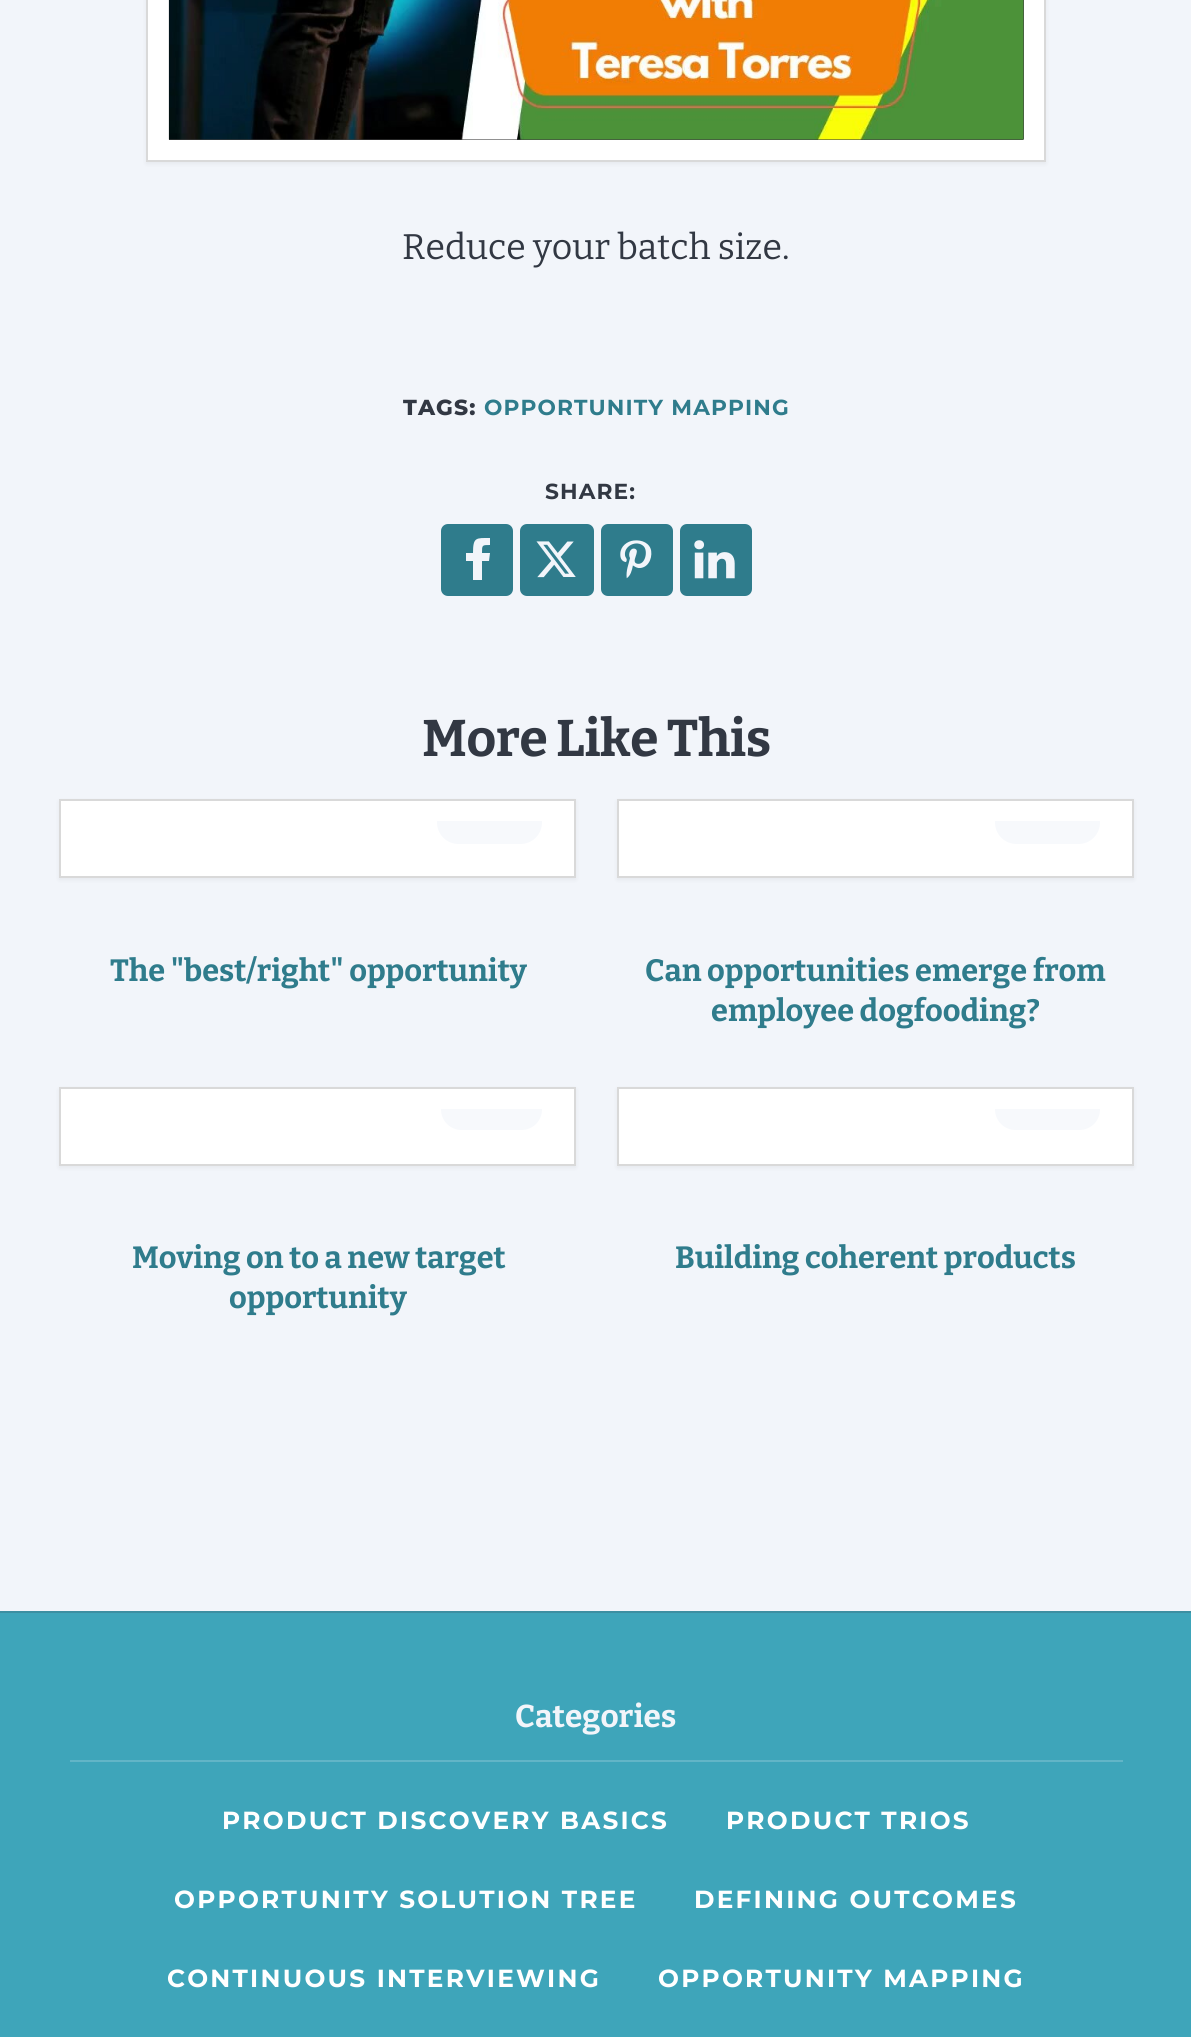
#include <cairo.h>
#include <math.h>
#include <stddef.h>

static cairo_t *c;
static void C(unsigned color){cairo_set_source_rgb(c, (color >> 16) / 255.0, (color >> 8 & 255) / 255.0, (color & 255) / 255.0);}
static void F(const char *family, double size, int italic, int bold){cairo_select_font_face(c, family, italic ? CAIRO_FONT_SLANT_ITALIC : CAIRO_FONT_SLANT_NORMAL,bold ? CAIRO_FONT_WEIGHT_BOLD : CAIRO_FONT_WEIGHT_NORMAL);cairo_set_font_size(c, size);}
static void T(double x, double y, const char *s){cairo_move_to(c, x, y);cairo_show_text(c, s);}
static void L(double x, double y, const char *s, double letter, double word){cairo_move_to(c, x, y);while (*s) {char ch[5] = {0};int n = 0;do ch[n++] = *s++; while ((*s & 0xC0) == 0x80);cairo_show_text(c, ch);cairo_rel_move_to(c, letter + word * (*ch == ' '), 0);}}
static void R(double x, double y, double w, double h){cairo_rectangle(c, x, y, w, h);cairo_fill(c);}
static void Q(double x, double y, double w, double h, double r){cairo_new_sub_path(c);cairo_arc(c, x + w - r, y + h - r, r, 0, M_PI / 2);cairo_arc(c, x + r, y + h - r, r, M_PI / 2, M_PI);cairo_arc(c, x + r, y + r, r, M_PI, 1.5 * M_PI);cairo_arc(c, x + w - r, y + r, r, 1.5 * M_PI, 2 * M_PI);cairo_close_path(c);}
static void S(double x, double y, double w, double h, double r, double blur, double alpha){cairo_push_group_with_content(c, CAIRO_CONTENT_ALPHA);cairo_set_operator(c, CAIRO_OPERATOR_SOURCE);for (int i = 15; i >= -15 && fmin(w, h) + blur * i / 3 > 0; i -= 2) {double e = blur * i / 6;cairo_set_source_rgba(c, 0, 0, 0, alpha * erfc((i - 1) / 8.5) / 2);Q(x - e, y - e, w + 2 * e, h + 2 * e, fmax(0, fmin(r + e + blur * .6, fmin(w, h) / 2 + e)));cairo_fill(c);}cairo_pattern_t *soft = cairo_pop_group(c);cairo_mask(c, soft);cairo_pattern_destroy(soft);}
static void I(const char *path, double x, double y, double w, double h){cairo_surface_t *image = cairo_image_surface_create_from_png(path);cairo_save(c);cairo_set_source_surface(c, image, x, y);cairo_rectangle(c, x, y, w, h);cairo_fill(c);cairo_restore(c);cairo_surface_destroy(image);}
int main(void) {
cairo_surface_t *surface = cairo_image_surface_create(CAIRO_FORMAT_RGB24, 1191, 2037);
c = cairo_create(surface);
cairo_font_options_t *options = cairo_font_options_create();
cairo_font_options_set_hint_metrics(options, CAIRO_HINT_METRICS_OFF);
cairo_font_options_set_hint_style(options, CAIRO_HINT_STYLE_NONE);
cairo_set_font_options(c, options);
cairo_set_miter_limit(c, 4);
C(0xf2f5fa);
cairo_paint(c);
C(0x000000);
S(146,-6,900,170,0,2,.05);
C(0xffffff);
cairo_rectangle(c,147,-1,898,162);
cairo_fill_preserve(c);
C(0xd9d9d9);
cairo_stroke(c);
I("1.png",168,0,856,140);
F("Bitter",35.6,0,0);
C(0x323843);
T(402,259,"Reduce your batch size.");
F("Montserrat ExtraBold",21.75,0,0);
L(403,415,"TAGS:",1.1,0);
F("Montserrat",21.75,0,1);
C(0x2f7c8c);
L(484,415,"OPPORTUNITY MAPPING",1.1,0);
C(0x323843);
L(545,499,"SHARE:",1.1,0);
C(0x2f7c8c);
Q(441,524,72,72,7);
cairo_fill(c);
C(0xf2f5fa);
cairo_new_path(c);
cairo_move_to(c,482,580);
cairo_line_to(c,482,561);
cairo_line_to(c,489,561);
cairo_line_to(c,490,553);
cairo_line_to(c,482,553);
cairo_curve_to(c,482,545,482,545,490,545);
cairo_line_to(c,490,538);
cairo_curve_to(c,476,538,473,537,473,553);
cairo_line_to(c,466,553);
cairo_line_to(c,466,561);
cairo_line_to(c,473,561);
cairo_line_to(c,473,580);
cairo_close_path(c);
cairo_fill(c);
C(0x2f7c8c);
Q(520,524,74,72,7);
cairo_fill(c);
I("2.png",536,541,40,37);
Q(601,524,72,72,7);
cairo_fill(c);
I("3.png",620,540,32,39);
Q(680,524,72,72,7);
cairo_fill(c);
I("4.png",694,540,41,39);
F("Bitter",51.5,0,1);
C(0x323843);
L(422,756,"More Like This",-.5,0);
C(0x000000);
S(59,801,517,79,0,2,.05);
C(0xffffff);
cairo_rectangle(c,60,800,515,77);
cairo_fill_preserve(c);
C(0xd9d9d9);
cairo_stroke(c);
cairo_save(c);
cairo_rectangle(c,81,821,473,36);
cairo_clip(c);
C(0xf7f9fc);
Q(437,801,105,43,21.5);
cairo_fill(c);
cairo_restore(c);
F("Bitter",30.75,0,1);
C(0x2f7c8c);
T(110,981,"The \"best/right\" opportunity");
C(0x000000);
S(617,801,517,79,0,2,.05);
C(0xffffff);
cairo_rectangle(c,618,800,515,77);
cairo_fill_preserve(c);
C(0xd9d9d9);
cairo_stroke(c);
cairo_save(c);
cairo_rectangle(c,639,821,473,36);
cairo_clip(c);
C(0xf7f9fc);
Q(995,801,105,43,21.5);
cairo_fill(c);
cairo_restore(c);
C(0x2f7c8c);
T(645,981,"Can opportunities emerge from");
T(711,1021,"employee dogfooding?");
C(0x000000);
S(59,1089,517,79,0,2,.05);
C(0xffffff);
cairo_rectangle(c,60,1088,515,77);
cairo_fill_preserve(c);
C(0xd9d9d9);
cairo_stroke(c);
cairo_save(c);
cairo_rectangle(c,81,1109,473,36);
cairo_clip(c);
C(0xf7f9fc);
Q(441,1089,101,41,20.5);
cairo_fill(c);
cairo_restore(c);
C(0x2f7c8c);
T(132,1268,"Moving on to a new target");
T(229,1308,"opportunity");
C(0x000000);
S(617,1089,517,79,0,2,.05);
C(0xffffff);
cairo_rectangle(c,618,1088,515,77);
cairo_fill_preserve(c);
C(0xd9d9d9);
cairo_stroke(c);
cairo_save(c);
cairo_rectangle(c,639,1109,473,36);
cairo_clip(c);
C(0xf7f9fc);
Q(995,1089,105,41,20.5);
cairo_fill(c);
cairo_restore(c);
C(0x2f7c8c);
T(675,1268,"Building coherent products");
C(0x3ea5ba);
R(0,1613,1191,424);
C(0x3c8fa2);
R(0,1611,1191,2);
C(0x62b5c7);
R(70,1760,1053,2);
F("Bitter",31.5,0,1);
C(0xf2f5fa);
T(515,1727,"Categories");
F("Montserrat",24.75,0,1);
C(0xffffff);
L(222,1829,"PRODUCT DISCOVERY BASICS",2.25,0);
L(726,1829,"PRODUCT TRIOS",2.25,0);
L(174,1908,"OPPORTUNITY SOLUTION TREE",2.25,0);
L(694,1908,"DEFINING OUTCOMES",2.25,0);
L(167,1987,"CONTINUOUS INTERVIEWING",2.25,0);
L(658,1987,"OPPORTUNITY MAPPING",2.25,0);
cairo_surface_write_to_png(surface, "o.png");
cairo_font_options_destroy(options);
cairo_destroy(c);
cairo_surface_destroy(surface);
return 0;
}
